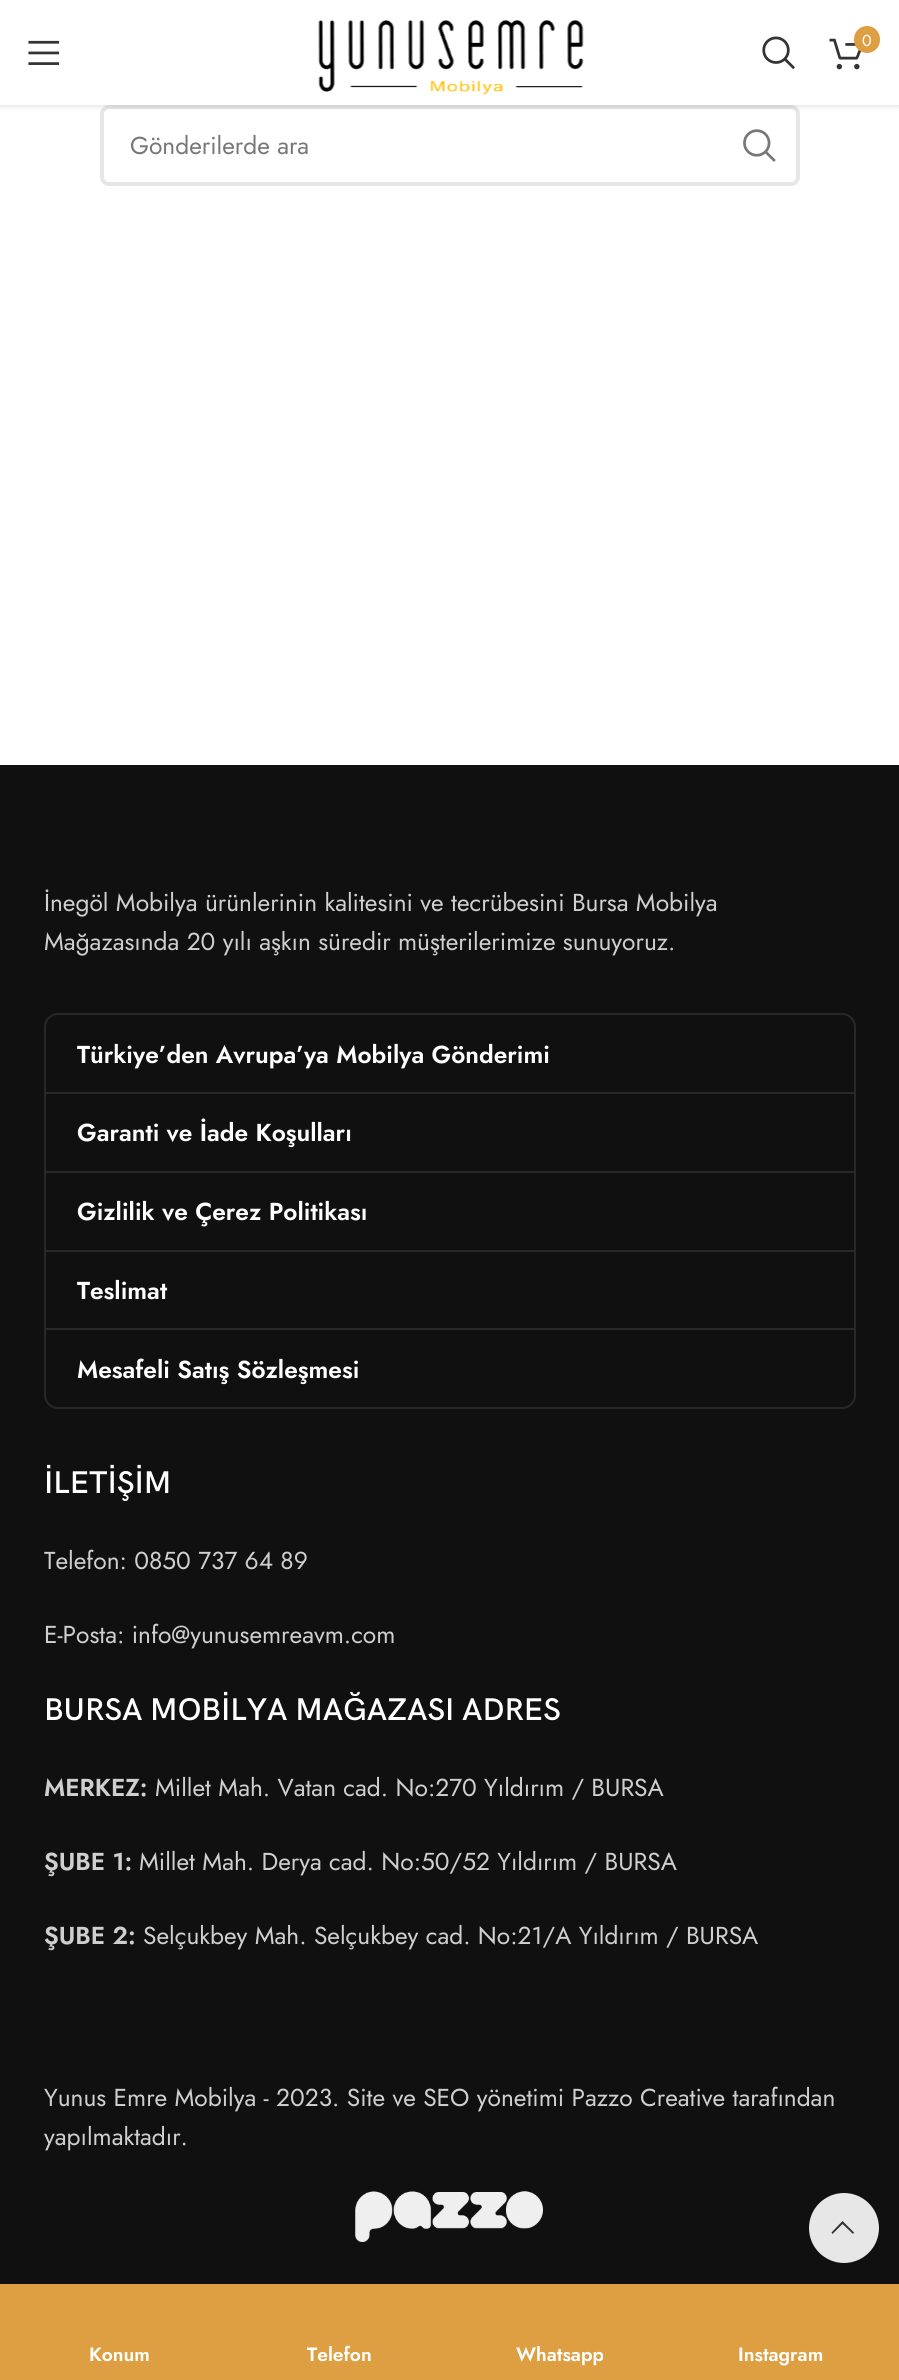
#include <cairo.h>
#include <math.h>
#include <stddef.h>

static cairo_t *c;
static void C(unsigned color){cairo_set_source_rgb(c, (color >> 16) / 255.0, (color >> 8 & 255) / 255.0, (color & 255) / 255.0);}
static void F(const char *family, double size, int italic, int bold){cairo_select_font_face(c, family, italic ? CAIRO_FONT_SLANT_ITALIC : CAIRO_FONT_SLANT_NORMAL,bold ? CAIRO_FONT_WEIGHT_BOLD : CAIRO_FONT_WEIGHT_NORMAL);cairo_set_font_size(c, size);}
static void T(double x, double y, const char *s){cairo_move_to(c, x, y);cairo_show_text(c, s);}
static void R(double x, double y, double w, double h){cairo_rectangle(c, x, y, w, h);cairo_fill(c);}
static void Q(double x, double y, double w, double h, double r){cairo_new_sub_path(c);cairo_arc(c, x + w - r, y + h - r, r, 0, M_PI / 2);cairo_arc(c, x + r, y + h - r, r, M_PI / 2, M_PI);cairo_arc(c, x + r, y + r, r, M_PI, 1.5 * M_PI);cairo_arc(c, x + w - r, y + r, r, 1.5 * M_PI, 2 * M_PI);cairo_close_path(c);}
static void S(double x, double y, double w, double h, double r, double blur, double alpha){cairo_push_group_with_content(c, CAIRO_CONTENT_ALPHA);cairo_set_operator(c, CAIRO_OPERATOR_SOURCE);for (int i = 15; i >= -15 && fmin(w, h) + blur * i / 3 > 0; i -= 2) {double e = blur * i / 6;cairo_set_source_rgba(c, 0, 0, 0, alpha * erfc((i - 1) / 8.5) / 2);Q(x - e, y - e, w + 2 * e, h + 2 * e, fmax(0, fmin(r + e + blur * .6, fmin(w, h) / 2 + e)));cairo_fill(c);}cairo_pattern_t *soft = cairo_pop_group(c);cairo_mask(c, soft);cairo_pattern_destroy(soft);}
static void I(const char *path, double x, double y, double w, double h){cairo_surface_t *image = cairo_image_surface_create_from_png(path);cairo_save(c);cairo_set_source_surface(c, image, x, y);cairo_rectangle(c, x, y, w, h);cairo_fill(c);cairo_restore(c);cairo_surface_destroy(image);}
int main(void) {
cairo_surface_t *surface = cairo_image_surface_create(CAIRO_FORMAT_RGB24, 899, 2380);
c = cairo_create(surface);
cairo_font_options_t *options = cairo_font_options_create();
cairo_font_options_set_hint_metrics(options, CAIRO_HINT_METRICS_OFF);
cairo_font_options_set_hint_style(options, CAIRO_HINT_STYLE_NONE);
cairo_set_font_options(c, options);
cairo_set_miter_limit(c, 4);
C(0xffffff);
cairo_paint(c);
Q(102,107,696,77,7);
C(0xe6e6e6);
cairo_set_line_width(c,4);
cairo_stroke(c);
C(0x000000);
S(0,2,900,105,0,2.5,.1);
C(0xffffff);
R(0,0,899,105);
I("1.png",28,40,32,25);
I("2.png",318,20,266,75);
I("3.png",762,36,33,34);
I("4.png",829,38,33,32);
C(0xdd9f42);
Q(854,26,26,27,13);
cairo_fill(c);
F("Jost",16,0,0);
C(0xffffff);
T(862,46,"0");
F("Jost",24.5,0,0);
C(0x777777);
T(130,154,"Gönderilerde ara");
I("5.png",743,129,33,33);
C(0x101010);
R(0,765,899,1519);
C(0xcfcfcf);
T(44,911,"İnegöl Mobilya ürünlerinin kalitesini ve tecrübesini Bursa Mobilya");
T(44,950,"Mağazasında 20 yılı aşkın süredir müşterilerimize sunuyoruz.");
Q(45,1014,810,394,13);
C(0x282828);
cairo_set_line_width(c,2);
cairo_stroke(c);
R(46,1092,808,2);
F("Jost SemiBold",24.5,0,0);
C(0xffffff);
T(77,1063,"Türkiye’den Avrupa’ya Mobilya Gönderimi");
C(0x282828);
R(46,1171,808,2);
C(0xffffff);
T(77,1141,"Garanti ve İade Koşulları");
C(0x282828);
R(46,1250,808,2);
C(0xffffff);
T(77,1220,"Gizlilik ve Çerez Politikası");
C(0x282828);
R(46,1328,808,2);
C(0xffffff);
T(77,1299,"Teslimat");
T(77,1378,"Mesafeli Satış Sözleşmesi");
F("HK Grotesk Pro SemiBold",31.5,0,0);
T(44,1493,"İLETİŞİM");
F("Jost",24.5,0,0);
C(0xcfcfcf);
T(44,1569,"Telefon: 0850 737 64 89");
T(44,1643,"E-Posta: info@yunusemreavm.com");
F("HK Grotesk Pro SemiBold",31.5,0,0);
C(0xffffff);
T(44,1720,"BURSA MOBİLYA MAĞAZASI ADRES");
F("Jost SemiBold",24.5,0,0);
C(0xcfcfcf);
T(44,1796,"MERKEZ:");
F("Jost",24.5,0,0);
T(155,1796,"Millet Mah. Vatan cad. No:270 Yıldırım / BURSA");
F("Jost SemiBold",24.5,0,0);
T(44,1870,"ŞUBE 1:");
F("Jost",24.5,0,0);
T(139,1870,"Millet Mah. Derya cad. No:50/52 Yıldırım / BURSA");
F("Jost SemiBold",24.5,0,0);
T(44,1944,"ŞUBE 2:");
F("Jost",24.5,0,0);
T(143,1944,"Selçukbey Mah. Selçukbey cad. No:21/A Yıldırım / BURSA");
T(44,2106,"Yunus Emre Mobilya - 2023. Site ve SEO yönetimi Pazzo Creative tarafından");
T(44,2145,"yapılmaktadır.");
I("6.png",355,2191,188,51);
C(0xe7e7e7);
cairo_arc(c,844,2228,35,0,2 * M_PI);
cairo_fill(c);
C(0x333333);
cairo_new_path(c);
cairo_move_to(c,853,2234);
cairo_line_to(c,854,2232.5);
cairo_line_to(c,842.5,2221);
cairo_line_to(c,831.5,2232.5);
cairo_line_to(c,832.5,2234);
cairo_line_to(c,842.5,2224);
cairo_close_path(c);
cairo_fill(c);
C(0xdd9f42);
R(0,2284,899,96);
F("Jost SemiBold",19.25,0,0);
C(0xffffff);
T(89,2361,"Konum");
T(307,2361,"Telefon");
T(516,2361,"Whatsapp");
T(738,2361,"Instagram");
cairo_surface_write_to_png(surface, "o.png");
cairo_font_options_destroy(options);
cairo_destroy(c);
cairo_surface_destroy(surface);
return 0;
}
